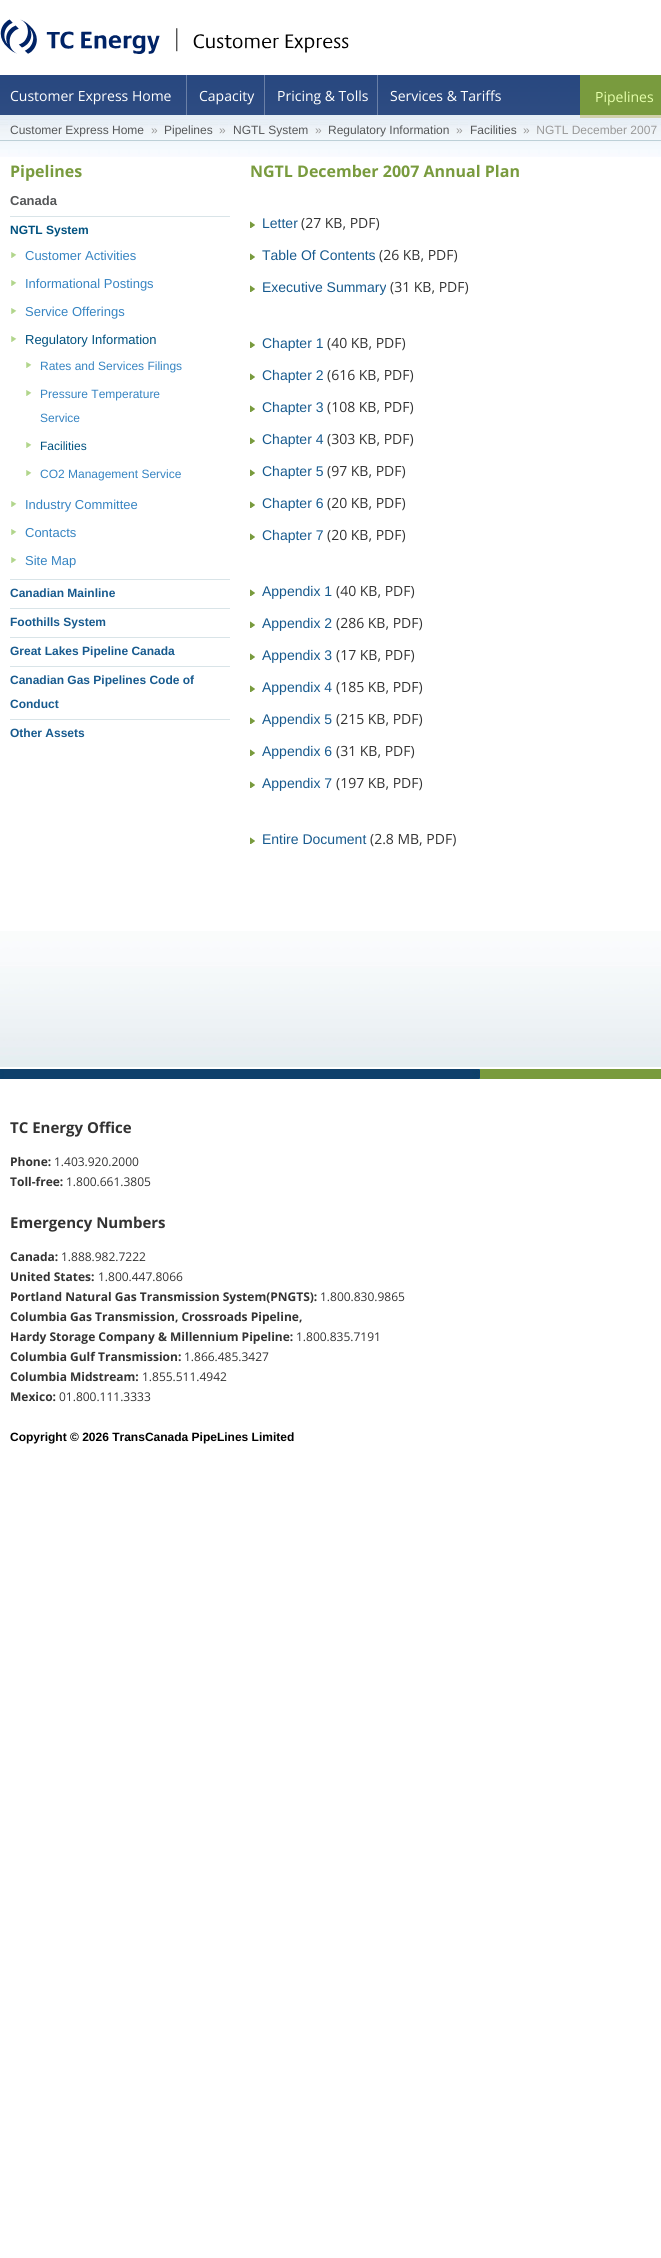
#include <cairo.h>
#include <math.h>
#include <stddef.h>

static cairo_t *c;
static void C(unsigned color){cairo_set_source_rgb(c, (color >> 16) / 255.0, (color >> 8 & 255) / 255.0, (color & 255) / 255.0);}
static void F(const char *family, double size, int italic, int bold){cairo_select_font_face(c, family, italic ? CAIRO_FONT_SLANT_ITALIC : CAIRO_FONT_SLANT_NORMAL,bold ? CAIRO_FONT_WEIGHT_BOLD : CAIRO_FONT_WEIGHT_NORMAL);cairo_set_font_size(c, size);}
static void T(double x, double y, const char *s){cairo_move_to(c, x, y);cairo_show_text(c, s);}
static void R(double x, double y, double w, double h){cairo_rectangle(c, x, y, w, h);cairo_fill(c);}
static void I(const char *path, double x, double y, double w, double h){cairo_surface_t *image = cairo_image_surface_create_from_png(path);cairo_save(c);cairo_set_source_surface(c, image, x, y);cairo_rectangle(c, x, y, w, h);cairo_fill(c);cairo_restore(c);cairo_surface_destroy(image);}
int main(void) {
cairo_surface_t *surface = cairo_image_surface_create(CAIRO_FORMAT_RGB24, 661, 2258);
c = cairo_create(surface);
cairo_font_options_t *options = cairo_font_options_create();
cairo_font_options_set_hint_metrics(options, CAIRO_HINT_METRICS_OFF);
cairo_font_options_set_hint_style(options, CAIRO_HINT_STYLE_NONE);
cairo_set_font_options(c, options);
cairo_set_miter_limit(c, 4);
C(0xffffff);
cairo_paint(c);
I("1.png",0,75,661,82);
I("2.png",0,19,349,35);
cairo_set_source_rgba(c,0,0.137,0.4,0.8);
R(0,75,580,40);
cairo_set_source_rgba(c,1,1,1,0.3);
R(186,75,1,40);
F("Open Sans",14,0,0);
C(0xffffff);
T(10,101,"Customer Express Home");
cairo_set_source_rgba(c,1,1,1,0.3);
R(264,75,1,40);
C(0xffffff);
T(199,101,"Capacity");
cairo_set_source_rgba(c,1,1,1,0.3);
R(377,75,1,40);
C(0xffffff);
T(277,101,"Pricing & Tolls");
T(390,101,"Services & Tariffs");
C(0x799b3e);
R(580,75,81,40);
C(0xe6ffab);
T(595,102,"Pipelines");
C(0xd1d1ab);
R(580,115,81,3);
C(0xbdd0d7);
R(0,140,661,1);
F("Liberation Sans",12,0,0);
C(0x555759);
T(10,134,"Customer Express Home");
C(0x999999);
T(151,134,"»");
C(0x555759);
T(164,134,"Pipelines");
C(0x999999);
T(219,134,"»");
C(0x555759);
T(233,134,"NGTL System");
C(0x999999);
T(315,134,"»");
C(0x555759);
T(328,134,"Regulatory Information");
C(0x999999);
T(456,134,"»");
C(0x555759);
T(470,134,"Facilities");
C(0x999999);
T(523,134,"»  NGTL December 2007");
F("Open Sans",16,0,1);
C(0x799b3e);
T(10,177,"Pipelines");
F("Liberation Sans",13,0,1);
C(0x555759);
T(10,205,"Canada");
C(0xd9e4e8);
R(10,216,220,1);
F("Liberation Sans",12,0,1);
C(0x00517f);
T(10,234,"NGTL System");
I("3.png",11,252,6,6);
F("Liberation Sans",13,0,0);
C(0x3684c2);
T(25,260,"Customer Activities");
I("3.png",11,280,6,6);
T(25,288,"Informational Postings");
I("3.png",11,308,6,6);
T(25,316,"Service Offerings");
I("3.png",11,336,6,6);
C(0x00517f);
T(25,344,"Regulatory Information");
I("3.png",26,362,6,6);
F("Liberation Sans",12,0,0);
C(0x3684c2);
T(40,370,"Rates and Services Filings");
I("3.png",26,390,6,6);
T(40,398,"Pressure Temperature");
T(40,422,"Service");
I("3.png",26,442,6,6);
C(0x00517f);
T(40,450,"Facilities");
I("3.png",26,470,6,6);
C(0x3684c2);
T(40,478,"CO2 Management Service");
I("3.png",11,501,6,6);
F("Liberation Sans",13,0,0);
T(25,509,"Industry Committee");
I("3.png",11,529,6,6);
T(25,537,"Contacts");
I("3.png",11,557,6,6);
T(25,565,"Site Map");
C(0xd9e4e8);
R(10,579,220,1);
F("Liberation Sans",12,0,1);
C(0x175a8e);
T(10,597,"Canadian Mainline");
C(0xd9e4e8);
R(10,608,220,1);
C(0x175a8e);
T(10,626,"Foothills System");
C(0xd9e4e8);
R(10,637,220,1);
C(0x175a8e);
T(10,655,"Great Lakes Pipeline Canada");
C(0xd9e4e8);
R(10,666,220,1);
C(0x175a8e);
T(10,684,"Canadian Gas Pipelines Code of");
T(10,708,"Conduct");
C(0xd9e4e8);
R(10,719,220,1);
C(0x175a8e);
T(10,737,"Other Assets");
F("Open Sans",16,0,1);
C(0x799b3e);
T(250,177,"NGTL December 2007 Annual Plan");
I("4.png",250,221,5,7);
F("Liberation Sans",14,0,0);
C(0x175a8e);
T(262,228,"Letter");
F("Open Sans",14,0,0);
C(0x333333);
T(301,228,"(27 KB, PDF)");
I("4.png",250,253,5,7);
F("Liberation Sans",14,0,0);
C(0x175a8e);
T(262,260,"Table Of Contents");
F("Open Sans",14,0,0);
C(0x333333);
T(379,260,"(26 KB, PDF)");
I("4.png",250,285,5,7);
F("Liberation Sans",14,0,0);
C(0x175a8e);
T(262,292,"Executive Summary");
F("Open Sans",14,0,0);
C(0x333333);
T(390,292,"(31 KB, PDF)");
I("4.png",250,341,5,7);
F("Liberation Sans",14,0,0);
C(0x175a8e);
T(262,348,"Chapter 1");
F("Open Sans",14,0,0);
C(0x333333);
T(327,348,"(40 KB, PDF)");
I("4.png",250,373,5,7);
F("Liberation Sans",14,0,0);
C(0x175a8e);
T(262,380,"Chapter 2");
F("Open Sans",14,0,0);
C(0x333333);
T(327,380,"(616 KB, PDF)");
I("4.png",250,405,5,7);
F("Liberation Sans",14,0,0);
C(0x175a8e);
T(262,412,"Chapter 3");
F("Open Sans",14,0,0);
C(0x333333);
T(327,412,"(108 KB, PDF)");
I("4.png",250,437,5,7);
F("Liberation Sans",14,0,0);
C(0x175a8e);
T(262,444,"Chapter 4");
F("Open Sans",14,0,0);
C(0x333333);
T(327,444,"(303 KB, PDF)");
I("4.png",250,469,5,7);
F("Liberation Sans",14,0,0);
C(0x175a8e);
T(262,476,"Chapter 5");
F("Open Sans",14,0,0);
C(0x333333);
T(327,476,"(97 KB, PDF)");
I("4.png",250,501,5,7);
F("Liberation Sans",14,0,0);
C(0x175a8e);
T(262,508,"Chapter 6");
F("Open Sans",14,0,0);
C(0x333333);
T(327,508,"(20 KB, PDF)");
I("4.png",250,533,5,7);
F("Liberation Sans",14,0,0);
C(0x175a8e);
T(262,540,"Chapter 7");
F("Open Sans",14,0,0);
C(0x333333);
T(327,540,"(20 KB, PDF)");
I("4.png",250,589,5,7);
F("Liberation Sans",14,0,0);
C(0x175a8e);
T(262,596,"Appendix 1");
F("Open Sans",14,0,0);
C(0x333333);
T(336,596,"(40 KB, PDF)");
I("4.png",250,621,5,7);
F("Liberation Sans",14,0,0);
C(0x175a8e);
T(262,628,"Appendix 2");
F("Open Sans",14,0,0);
C(0x333333);
T(336,628,"(286 KB, PDF)");
I("4.png",250,653,5,7);
F("Liberation Sans",14,0,0);
C(0x175a8e);
T(262,660,"Appendix 3");
F("Open Sans",14,0,0);
C(0x333333);
T(336,660,"(17 KB, PDF)");
I("4.png",250,685,5,7);
F("Liberation Sans",14,0,0);
C(0x175a8e);
T(262,692,"Appendix 4");
F("Open Sans",14,0,0);
C(0x333333);
T(336,692,"(185 KB, PDF)");
I("4.png",250,717,5,7);
F("Liberation Sans",14,0,0);
C(0x175a8e);
T(262,724,"Appendix 5");
F("Open Sans",14,0,0);
C(0x333333);
T(336,724,"(215 KB, PDF)");
I("4.png",250,749,5,7);
F("Liberation Sans",14,0,0);
C(0x175a8e);
T(262,756,"Appendix 6");
F("Open Sans",14,0,0);
C(0x333333);
T(336,756,"(31 KB, PDF)");
I("4.png",250,781,5,7);
F("Liberation Sans",14,0,0);
C(0x175a8e);
T(262,788,"Appendix 7");
F("Open Sans",14,0,0);
C(0x333333);
T(336,788,"(197 KB, PDF)");
I("4.png",250,837,5,7);
F("Liberation Sans",14,0,0);
C(0x175a8e);
T(262,844,"Entire Document");
F("Open Sans",14,0,0);
C(0x333333);
T(370,844,"(2.8 MB, PDF)");
I("5.png",0,931,661,136);
I("6.png",0,1069,661,10);
F("Open Sans",15,0,1);
T(10,1133,"TC Energy Office");
F("Open Sans",12,0,1);
T(10,1166,"Phone:");
F("Open Sans",12,0,0);
T(54,1166,"1.403.920.2000");
F("Open Sans",12,0,1);
T(10,1186,"Toll-free:");
F("Open Sans",12,0,0);
T(66,1186,"1.800.661.3805");
F("Open Sans",15,0,1);
T(10,1228,"Emergency Numbers");
F("Open Sans",12,0,1);
T(10,1261,"Canada:");
F("Open Sans",12,0,0);
T(61,1261,"1.888.982.7222");
F("Open Sans",12,0,1);
T(10,1281,"United States:");
F("Open Sans",12,0,0);
T(98,1281,"1.800.447.8066");
F("Open Sans",12,0,1);
T(10,1301,"Portland Natural Gas Transmission System(PNGTS):");
F("Open Sans",12,0,0);
T(320,1301,"1.800.830.9865");
F("Open Sans",12,0,1);
T(10,1321,"Columbia Gas Transmission, Crossroads Pipeline,");
T(10,1341,"Hardy Storage Company & Millennium Pipeline:");
F("Open Sans",12,0,0);
T(296,1341,"1.800.835.7191");
F("Open Sans",12,0,1);
T(10,1361,"Columbia Gulf Transmission:");
F("Open Sans",12,0,0);
T(184,1361,"1.866.485.3427");
F("Open Sans",12,0,1);
T(10,1381,"Columbia Midstream:");
F("Open Sans",12,0,0);
T(142,1381,"1.855.511.4942");
F("Open Sans",12,0,1);
T(10,1401,"Mexico:");
F("Open Sans",12,0,0);
T(59,1401,"01.800.111.3333");
F("Liberation Sans",12,0,1);
C(0x000000);
T(10,1441,"Copyright © 2026 TransCanada PipeLines Limited");
cairo_surface_write_to_png(surface, "o.png");
cairo_font_options_destroy(options);
cairo_destroy(c);
cairo_surface_destroy(surface);
return 0;
}
